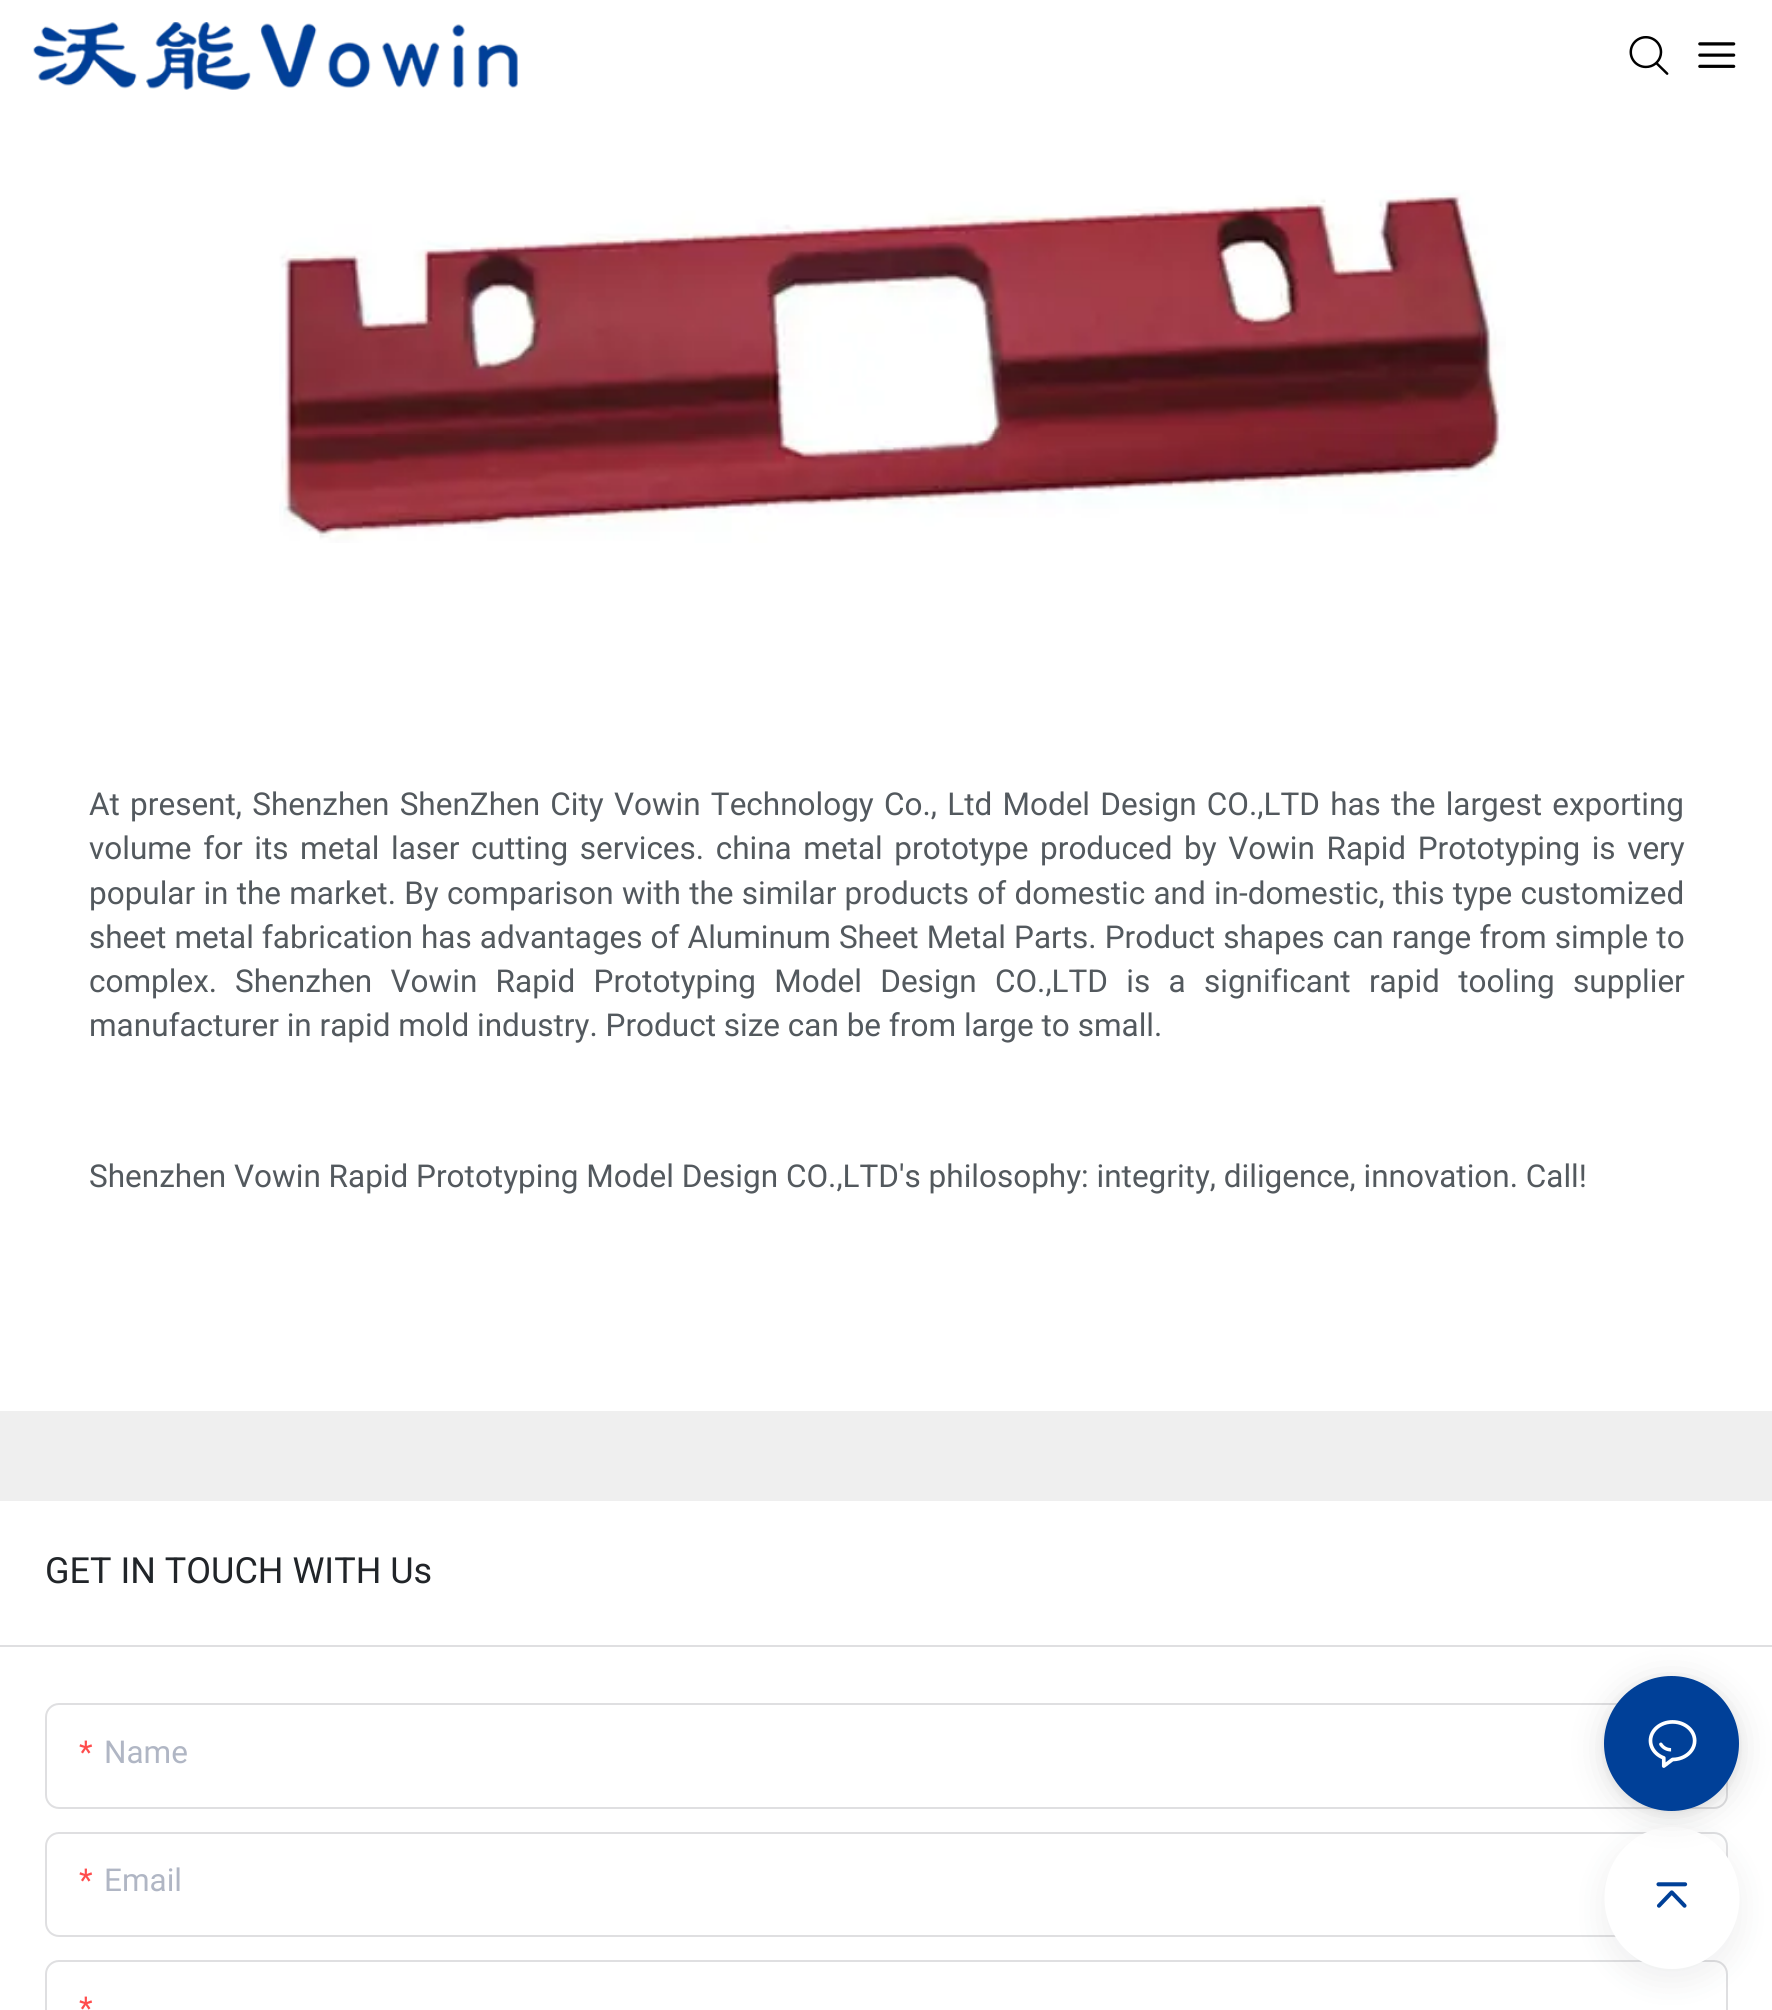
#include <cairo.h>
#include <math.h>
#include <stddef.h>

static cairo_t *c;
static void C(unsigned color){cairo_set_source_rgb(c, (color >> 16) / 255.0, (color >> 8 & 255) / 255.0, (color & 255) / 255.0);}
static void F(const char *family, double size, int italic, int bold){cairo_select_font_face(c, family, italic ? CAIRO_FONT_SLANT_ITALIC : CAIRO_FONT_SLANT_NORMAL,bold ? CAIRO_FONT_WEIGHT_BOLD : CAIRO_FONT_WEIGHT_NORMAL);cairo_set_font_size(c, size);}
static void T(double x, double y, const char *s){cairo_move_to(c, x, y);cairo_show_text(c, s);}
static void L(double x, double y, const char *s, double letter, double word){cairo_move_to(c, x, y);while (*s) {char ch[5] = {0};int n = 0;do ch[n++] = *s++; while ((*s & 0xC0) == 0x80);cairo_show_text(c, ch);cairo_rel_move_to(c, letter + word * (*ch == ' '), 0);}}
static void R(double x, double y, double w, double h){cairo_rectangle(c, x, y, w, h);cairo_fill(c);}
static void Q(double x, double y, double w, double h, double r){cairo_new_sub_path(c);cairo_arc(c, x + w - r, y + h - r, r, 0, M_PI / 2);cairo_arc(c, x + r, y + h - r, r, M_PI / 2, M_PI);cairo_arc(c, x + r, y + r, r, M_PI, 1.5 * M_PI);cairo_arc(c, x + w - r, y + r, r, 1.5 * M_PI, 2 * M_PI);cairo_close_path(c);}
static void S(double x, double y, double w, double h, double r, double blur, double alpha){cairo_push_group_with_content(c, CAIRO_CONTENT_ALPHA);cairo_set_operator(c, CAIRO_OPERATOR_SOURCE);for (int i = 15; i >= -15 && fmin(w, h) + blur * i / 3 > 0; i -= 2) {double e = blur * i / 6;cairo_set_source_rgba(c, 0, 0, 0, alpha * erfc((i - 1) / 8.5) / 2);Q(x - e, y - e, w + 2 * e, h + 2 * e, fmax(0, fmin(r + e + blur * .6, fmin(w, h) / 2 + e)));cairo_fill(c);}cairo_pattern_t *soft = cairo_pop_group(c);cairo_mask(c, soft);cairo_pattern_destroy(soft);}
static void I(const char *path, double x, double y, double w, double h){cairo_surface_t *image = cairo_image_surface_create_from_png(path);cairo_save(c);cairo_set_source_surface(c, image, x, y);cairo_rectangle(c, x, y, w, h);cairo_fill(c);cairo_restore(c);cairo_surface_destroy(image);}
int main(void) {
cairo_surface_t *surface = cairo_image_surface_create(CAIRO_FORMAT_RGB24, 1772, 2010);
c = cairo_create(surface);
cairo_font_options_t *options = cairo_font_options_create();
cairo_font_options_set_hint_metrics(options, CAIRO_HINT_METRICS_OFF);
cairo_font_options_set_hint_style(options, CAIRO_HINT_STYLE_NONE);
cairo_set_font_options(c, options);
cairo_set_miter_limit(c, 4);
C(0xefefef);
cairo_paint(c);
C(0xffffff);
R(0,0,1772,1411);
I("1.png",33,22,485,68);
I("2.png",1629,36,40,39);
I("3.png",1698,42,38,26);
I("4.png",279,190,1227,353);
F("Roboto",31.5,0,0);
C(0x53595e);
L(89,815,"At present, Shenzhen ShenZhen City Vowin Technology Co., Ltd Model Design CO.,LTD has the largest exporting",0,2.4);
L(89,859,"volume for its metal laser cutting services. china metal prototype produced by Vowin Rapid Prototyping is very",0,3.75);
L(89,904,"popular in the market. By comparison with the similar products of domestic and in-domestic, this type customized",0,.4);
L(89,948,"sheet metal fabrication has advantages of Aluminum Sheet Metal Parts. Product shapes can range from simple to",0,.25);
T(89,992,"complex.");
L(235,992,"Shenzhen Vowin Rapid Prototyping Model Design CO.,LTD is a significant rapid tooling supplier",0,10.5);
T(89,1036,"manufacturer in rapid mold industry. Product size can be from large to small.");
T(89,1187,"Shenzhen Vowin Rapid Prototyping Model Design CO.,LTD's philosophy: integrity, diligence, innovation. Call!");
C(0xffffff);
R(0,1501,1772,509);
C(0xdfdfe1);
R(0,1645,1772,2);
F("Roboto",36,0,0);
C(0x212529);
T(45,1583,"GET IN TOUCH WITH Us");
Q(46,1704,1681,104,13);
C(0xdfdfe1);
cairo_stroke(c);
F("Roboto",31.5,0,0);
C(0xff4d4d);
T(79,1763,"*");
C(0xb0b6c4);
T(104,1763,"Name");
Q(46,1833,1681,103,13);
C(0xdfdfe1);
cairo_stroke(c);
C(0xff4d4d);
T(79,1891,"*");
C(0xb0b6c4);
T(104,1891,"Email");
Q(46,1961,1681,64,13);
C(0xdfdfe1);
cairo_stroke(c);
C(0xff4d4d);
T(79,2019,"*");
C(0x282f36);
S(1604,1838,135,142,67.5,17,.08);
C(0xffffff);
cairo_new_path(c);
cairo_move_to(c,1672,1827);
cairo_curve_to(c,1709.5,1827,1739.5,1859,1739.5,1898);
cairo_curve_to(c,1739.5,1937,1709.5,1969,1672,1969);
cairo_curve_to(c,1634.5,1969,1604.5,1937,1604.5,1898);
cairo_curve_to(c,1604.5,1859,1634.5,1827,1672,1827);
cairo_close_path(c);
cairo_fill(c);
C(0x000000);
S(1604,1681,135,135,67.5,18,.12);
S(1604,1679,135,135,67.5,4.5,.06);
C(0x004098);
cairo_arc(c,1671.5,1743.5,67.5,0,2 * M_PI);
cairo_fill(c);
I("5.png",1648,1720,49,48);
I("6.png",1656,1882,32,26);
cairo_surface_write_to_png(surface, "o.png");
cairo_font_options_destroy(options);
cairo_destroy(c);
cairo_surface_destroy(surface);
return 0;
}
